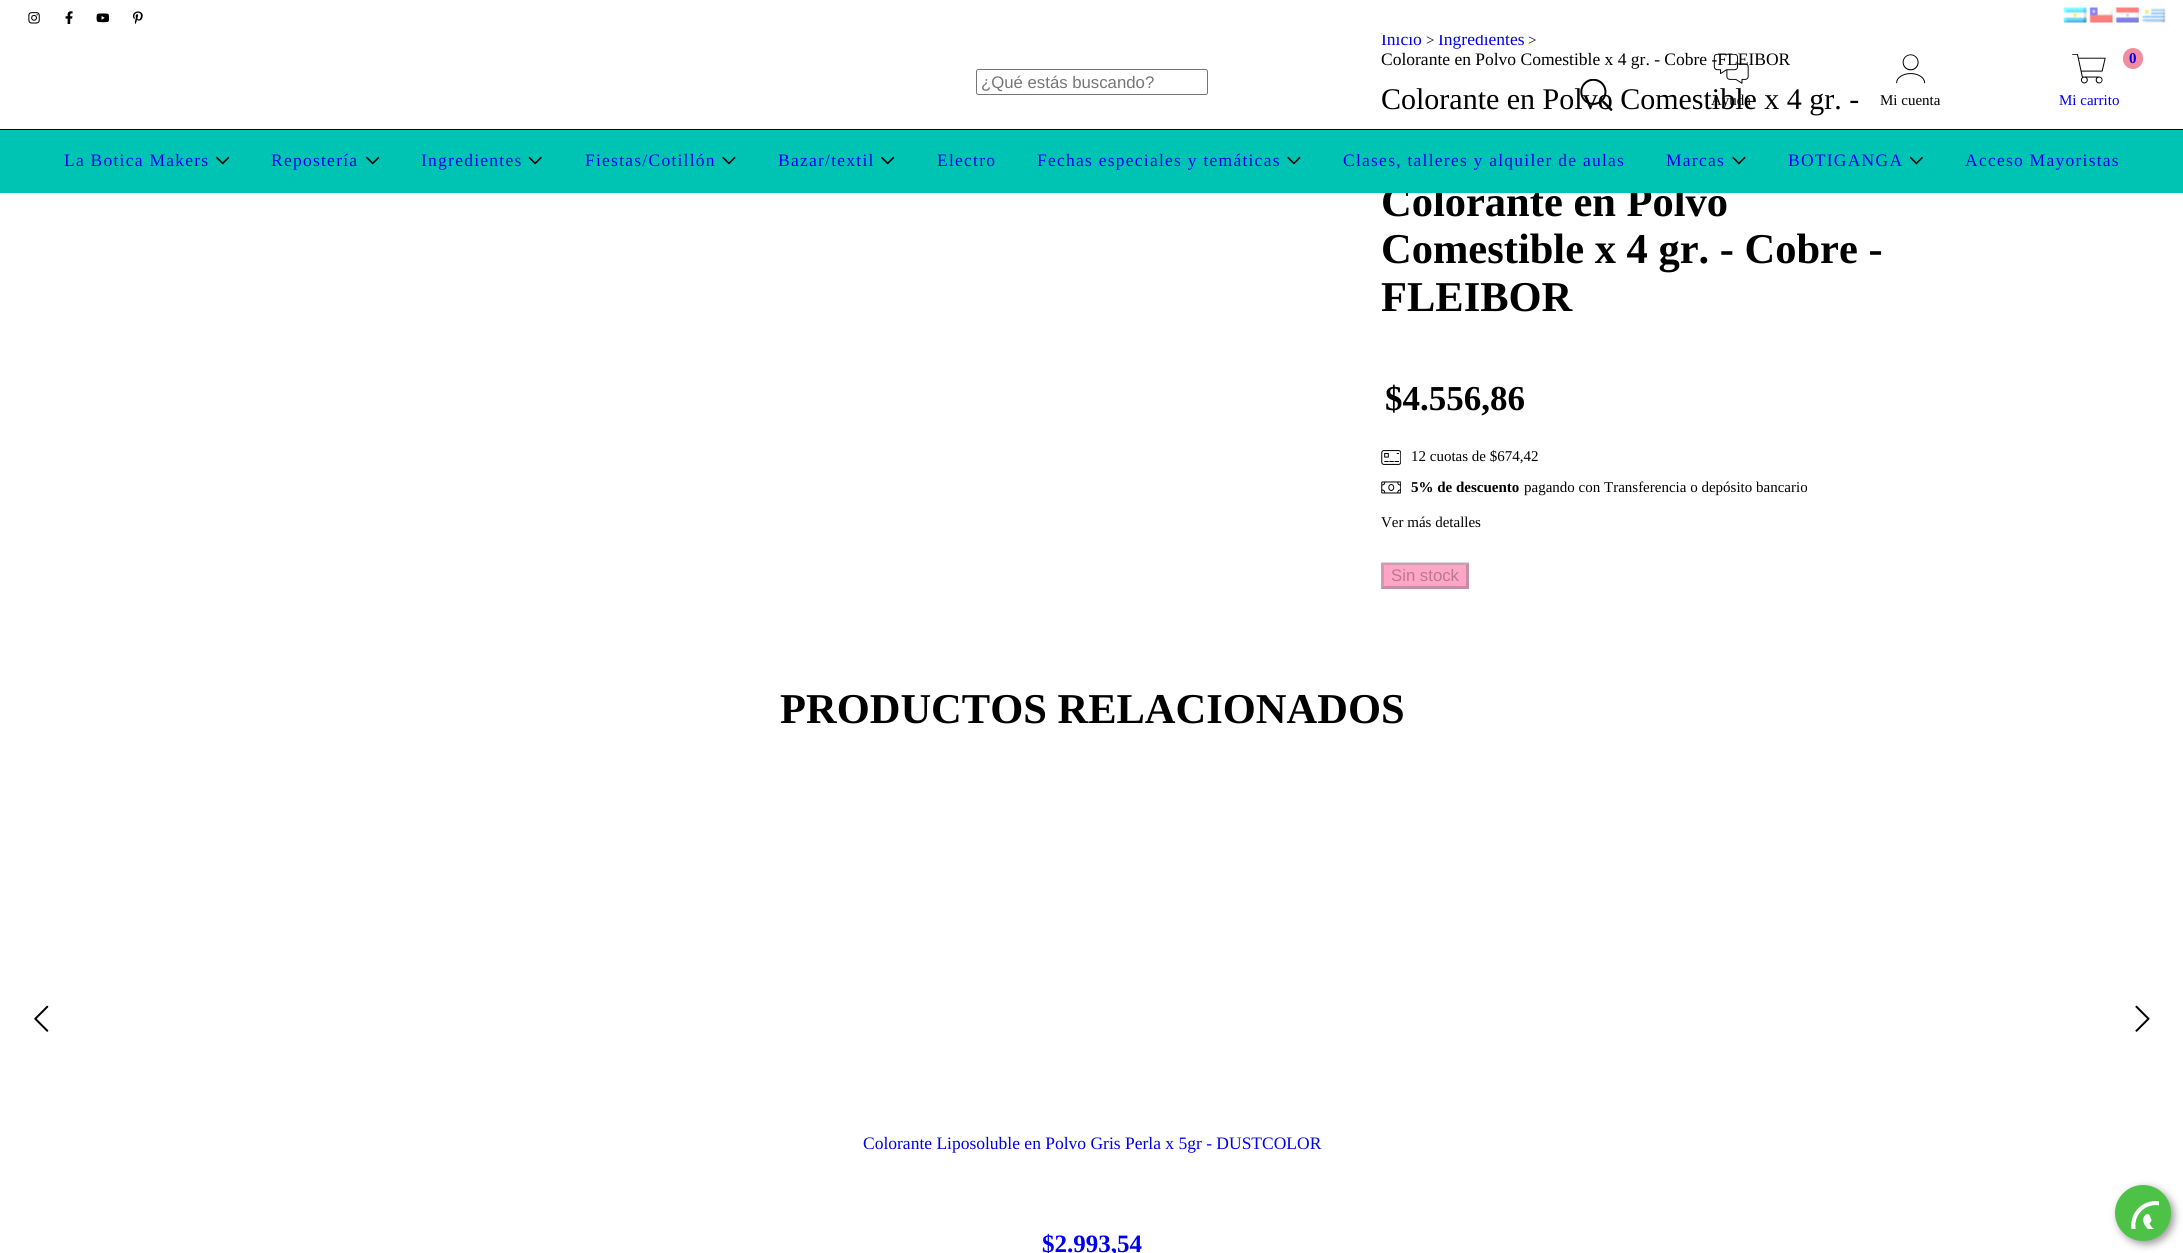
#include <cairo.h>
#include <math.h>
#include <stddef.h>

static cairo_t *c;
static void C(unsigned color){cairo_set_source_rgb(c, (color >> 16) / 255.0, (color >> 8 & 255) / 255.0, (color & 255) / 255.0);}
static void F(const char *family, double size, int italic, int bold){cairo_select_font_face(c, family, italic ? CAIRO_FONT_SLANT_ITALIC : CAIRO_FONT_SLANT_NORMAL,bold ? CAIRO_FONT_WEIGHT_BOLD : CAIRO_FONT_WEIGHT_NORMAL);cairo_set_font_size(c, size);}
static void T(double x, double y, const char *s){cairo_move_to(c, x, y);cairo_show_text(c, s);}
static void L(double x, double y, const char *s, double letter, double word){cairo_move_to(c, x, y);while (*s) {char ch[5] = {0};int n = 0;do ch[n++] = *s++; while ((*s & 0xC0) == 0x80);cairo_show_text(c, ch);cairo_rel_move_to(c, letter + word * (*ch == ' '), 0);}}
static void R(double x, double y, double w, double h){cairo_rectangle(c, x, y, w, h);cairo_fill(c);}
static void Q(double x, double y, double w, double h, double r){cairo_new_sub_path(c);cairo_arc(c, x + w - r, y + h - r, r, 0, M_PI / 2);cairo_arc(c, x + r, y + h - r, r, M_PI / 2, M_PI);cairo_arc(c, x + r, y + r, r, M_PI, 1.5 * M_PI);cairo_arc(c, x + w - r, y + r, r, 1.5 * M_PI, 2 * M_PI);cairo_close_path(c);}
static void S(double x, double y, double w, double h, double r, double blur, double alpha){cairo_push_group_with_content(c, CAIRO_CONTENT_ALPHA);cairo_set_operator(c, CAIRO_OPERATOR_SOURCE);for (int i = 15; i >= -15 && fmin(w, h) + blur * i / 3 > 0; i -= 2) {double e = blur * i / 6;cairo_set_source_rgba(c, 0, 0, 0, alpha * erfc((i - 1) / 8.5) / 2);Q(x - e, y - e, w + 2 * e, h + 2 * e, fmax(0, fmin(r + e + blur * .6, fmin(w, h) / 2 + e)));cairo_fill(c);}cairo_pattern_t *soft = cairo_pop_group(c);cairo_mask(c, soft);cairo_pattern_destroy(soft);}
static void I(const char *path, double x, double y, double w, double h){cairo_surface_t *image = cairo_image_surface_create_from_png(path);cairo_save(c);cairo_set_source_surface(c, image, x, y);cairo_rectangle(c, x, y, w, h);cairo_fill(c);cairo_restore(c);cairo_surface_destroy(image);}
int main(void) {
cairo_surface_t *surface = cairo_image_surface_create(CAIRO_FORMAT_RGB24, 2183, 1253);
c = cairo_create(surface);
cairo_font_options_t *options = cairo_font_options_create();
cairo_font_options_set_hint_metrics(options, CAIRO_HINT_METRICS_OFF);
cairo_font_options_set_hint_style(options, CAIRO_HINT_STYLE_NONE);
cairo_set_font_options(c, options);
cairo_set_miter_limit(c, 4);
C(0xffffff);
cairo_paint(c);
F("Liberation Serif",17.5,0,0);
C(0x0000ee);
T(1381,45,"Inicio");
F("Liberation Serif",15,0,0);
C(0x000000);
T(1426,45,">");
F("Liberation Serif",17.5,0,0);
C(0x0000ee);
T(1438,45,"Ingredientes");
F("Liberation Serif",15,0,0);
C(0x000000);
T(1528,45,">");
F("Liberation Serif",17.5,0,0);
T(1381,65,"Colorante en Polvo Comestible x 4 gr. - Cobre -FLEIBOR");
F("Liberation Serif",30,0,0);
T(1381,109,"Colorante en Polvo Comestible x 4 gr. -");
F("Liberation Serif",42.5,0,1);
T(1381,216,"Colorante en Polvo");
T(1381,263,"Comestible x 4 gr. - Cobre -");
T(1381,311,"FLEIBOR");
F("Liberation Serif",35,0,1);
T(1385,410,"$4.556,86");
I("1.png",1381,450,20,15);
F("Liberation Serif",15,0,0);
T(1411,461,"12 cuotas de $674,42");
I("2.png",1381,481,20,13);
F("Liberation Serif",15,0,1);
T(1411,492,"5% de descuento");
F("Liberation Serif",15,0,0);
T(1524,492,"pagando con Transferencia o depósito bancario");
T(1381,527,"Ver más detalles");
C(0xffa6c6);
R(1381,563,88,26);
cairo_set_source_rgba(c,0.463,0.463,0.463,0.3);
cairo_new_path(c);
cairo_move_to(c,1381,562);
cairo_line_to(c,1469,562);
cairo_line_to(c,1466,565);
cairo_line_to(c,1384,565);
cairo_close_path(c);
cairo_fill(c);
C(0xca8ca2);
cairo_new_path(c);
cairo_move_to(c,1469,562.5);
cairo_line_to(c,1469,589);
cairo_line_to(c,1466,586);
cairo_line_to(c,1466,565);
cairo_close_path(c);
cairo_fill(c);
cairo_set_source_rgba(c,0.31,0.31,0.31,0.3);
cairo_new_path(c);
cairo_move_to(c,1469,589);
cairo_line_to(c,1381,589);
cairo_line_to(c,1384,586);
cairo_line_to(c,1466,586);
cairo_close_path(c);
cairo_fill(c);
cairo_set_source_rgba(c,0.463,0.463,0.463,0.3);
cairo_new_path(c);
cairo_move_to(c,1381,589);
cairo_line_to(c,1381,562.5);
cairo_line_to(c,1384,565);
cairo_line_to(c,1384,586);
cairo_close_path(c);
cairo_fill(c);
F("Liberation Sans",16.75,0,0);
C(0xb7798f);
T(1391,581,"Sin stock");
F("Liberation Serif",42.5,0,1);
C(0x000000);
T(780,723,"PRODUCTOS RELACIONADOS");
I("3.png",34,1005,15,27);
I("4.png",2135,1005,15,27);
F("Liberation Serif",17.5,0,0);
C(0x0000ee);
T(863,1149,"Colorante Liposoluble en Polvo Gris Perla x 5gr - DUSTCOLOR");
F("Liberation Serif",25,0,1);
T(1042,1252,"$2.993,54");
C(0xffffff);
R(1382,32,106,3);
I("5.png",28,12,12,12);
I("6.png",65,11,8,13);
I("7.png",96,13,13,10);
I("8.png",132,11,11,13);
I("9.png",2063,7,24,16);
I("10.png",2089,7,24,16);
I("11.png",2115,7,24,16);
I("12.png",2141,8,25,15);
Q(976.5,69.5,231,25,2);
C(0x767676);
cairo_set_line_width(c,1);
cairo_stroke(c);
F("Liberation Sans",16.75,0,0);
C(0x757575);
T(981,88,"¿Qué estás buscando?");
I("13.png",1580,79,33,32);
I("14.png",1713,54,36,30);
F("Liberation Serif",15,0,0);
C(0x000000);
T(1711,105,"Ayuda");
I("15.png",1896,54,30,30);
T(1880,105,"Mi cuenta");
I("16.png",2072,54,34,30);
C(0xf18b9f);
Q(2123,48,20,21,10);
cairo_fill(c);
F("Liberation Serif",15,0,1);
C(0x0000ee);
T(2129,63,"0");
F("Liberation Serif",15,0,0);
T(2059,105,"Mi carrito");
C(0x000000);
R(0,129,2183,1);
C(0x00c4b3);
R(0,130,2183,63);
F("Liberation Serif",17.5,0,0);
C(0x0000ee);
L(64,166,"La Botica Makers",1.25,0);
I("17.png",216,156,14,9);
L(271,166,"Repostería",1.25,0);
I("17.png",366,156,14,9);
L(421,166,"Ingredientes",1.25,0);
I("18.png",528,156,14,9);
L(585,166,"Fiestas/Cotillón",1.25,0);
I("19.png",722,156,14,9);
L(778,166,"Bazar/textil",1.25,0);
I("17.png",881,156,14,9);
L(937,166,"Electro",1.25,0);
L(1037,166,"Fechas especiales y temáticas",1.25,0);
I("19.png",1287,156,14,9);
L(1343,166,"Clases, talleres y alquiler de aulas",1.25,0);
L(1666,166,"Marcas",1.25,0);
I("19.png",1732,156,14,9);
L(1788,166,"BOTIGANGA",1.25,0);
I("20.png",1909,156,14,9);
L(1965,166,"Acceso Mayoristas",1.25,0);
C(0x000000);
S(2118,1188,56,56,28,4,.4);
C(0x4dc247);
cairo_arc(c,2143,1213,28,0,2 * M_PI);
cairo_fill(c);
I("21.png",2131,1201,28,28);
cairo_surface_write_to_png(surface, "o.png");
cairo_font_options_destroy(options);
cairo_destroy(c);
cairo_surface_destroy(surface);
return 0;
}
